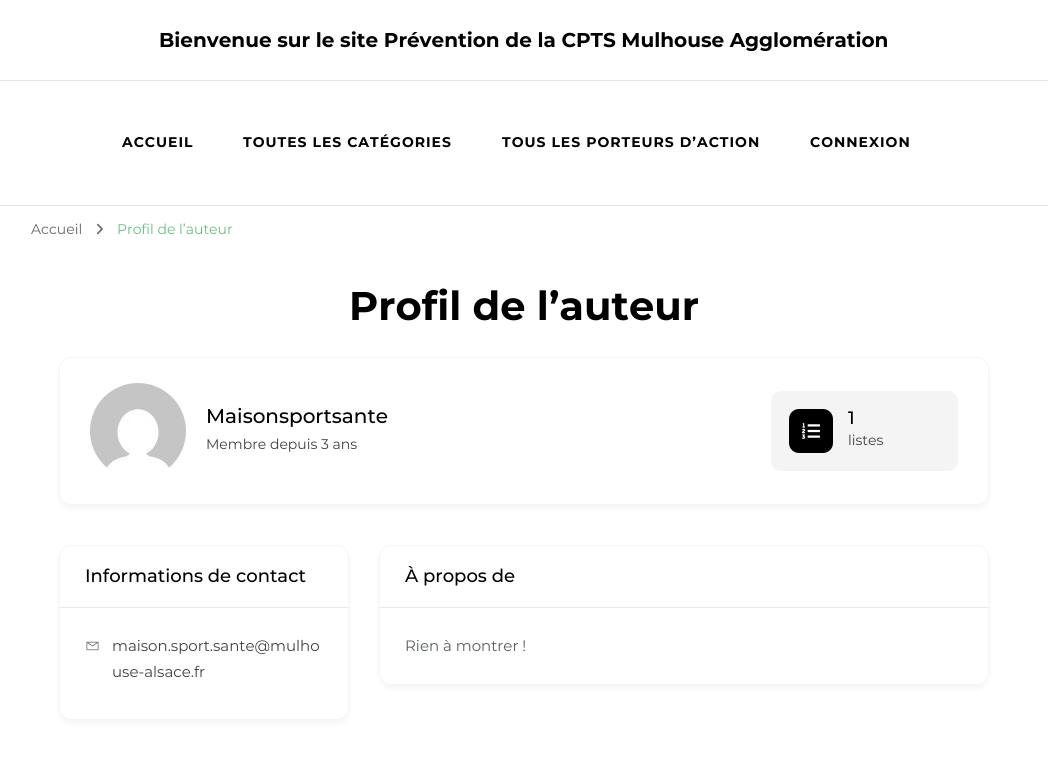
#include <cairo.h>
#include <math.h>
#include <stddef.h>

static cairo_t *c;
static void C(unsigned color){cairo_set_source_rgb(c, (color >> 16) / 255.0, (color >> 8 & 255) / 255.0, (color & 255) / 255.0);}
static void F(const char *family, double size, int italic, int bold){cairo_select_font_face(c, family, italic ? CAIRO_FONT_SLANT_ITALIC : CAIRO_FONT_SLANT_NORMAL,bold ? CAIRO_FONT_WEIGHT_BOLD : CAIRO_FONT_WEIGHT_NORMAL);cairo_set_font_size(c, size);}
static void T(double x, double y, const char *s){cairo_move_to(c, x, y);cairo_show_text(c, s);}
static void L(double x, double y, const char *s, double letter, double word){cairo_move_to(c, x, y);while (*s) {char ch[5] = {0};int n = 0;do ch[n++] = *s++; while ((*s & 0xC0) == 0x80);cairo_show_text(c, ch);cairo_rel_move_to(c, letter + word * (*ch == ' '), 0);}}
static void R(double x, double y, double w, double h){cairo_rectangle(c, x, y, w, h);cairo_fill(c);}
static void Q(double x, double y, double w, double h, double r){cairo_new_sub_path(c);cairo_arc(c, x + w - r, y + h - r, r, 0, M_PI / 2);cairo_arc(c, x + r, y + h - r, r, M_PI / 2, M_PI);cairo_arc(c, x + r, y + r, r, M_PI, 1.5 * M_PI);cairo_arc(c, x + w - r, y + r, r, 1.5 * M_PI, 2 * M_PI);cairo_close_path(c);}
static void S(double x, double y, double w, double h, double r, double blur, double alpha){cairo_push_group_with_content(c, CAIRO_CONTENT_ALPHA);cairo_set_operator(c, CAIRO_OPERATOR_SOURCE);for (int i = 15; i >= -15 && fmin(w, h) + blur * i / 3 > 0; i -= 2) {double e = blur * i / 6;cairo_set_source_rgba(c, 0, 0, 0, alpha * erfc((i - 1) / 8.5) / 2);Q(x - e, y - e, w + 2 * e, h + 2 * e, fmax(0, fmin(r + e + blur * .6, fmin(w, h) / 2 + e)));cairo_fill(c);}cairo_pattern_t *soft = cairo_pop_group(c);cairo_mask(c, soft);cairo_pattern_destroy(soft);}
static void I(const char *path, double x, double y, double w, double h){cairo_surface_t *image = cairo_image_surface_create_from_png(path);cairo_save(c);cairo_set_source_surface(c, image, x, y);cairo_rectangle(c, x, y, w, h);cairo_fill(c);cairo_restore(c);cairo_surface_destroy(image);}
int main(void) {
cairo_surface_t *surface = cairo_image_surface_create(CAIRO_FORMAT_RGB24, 1048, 758);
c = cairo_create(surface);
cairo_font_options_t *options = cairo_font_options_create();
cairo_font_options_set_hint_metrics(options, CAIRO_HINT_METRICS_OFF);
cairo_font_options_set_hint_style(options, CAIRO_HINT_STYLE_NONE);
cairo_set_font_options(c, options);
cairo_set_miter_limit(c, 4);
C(0xffffff);
cairo_paint(c);
C(0xe5e5e5);
R(0,205,1048,1);
R(0,80,1048,1);
F("Montserrat",20,0,1);
C(0x000000);
T(159,47,"Bienvenue sur le site Prévention de la CPTS Mulhouse Agglomération");
F("Montserrat",14,0,1);
L(122,147,"ACCUEIL",1,0);
L(243,147,"TOUTES LES CATÉGORIES",1,0);
L(502,147,"TOUS LES PORTEURS D’ACTION",1,0);
L(810,147,"CONNEXION",1,0);
F("Montserrat",14,0,0);
C(0x666666);
T(31,234,"Accueil");
I("1.png",96,223,7,12);
C(0x6abe83);
T(117,234,"Profil de l’auteur");
F("Montserrat",40,0,1);
C(0x000000);
T(349,320,"Profil de l’auteur");
C(0x000000);
S(59,361,930,148,12,3,.04);
C(0xffffff);
Q(59.5,357.5,929,147,11.5);
cairo_fill_preserve(c);
C(0xf5f5f5);
cairo_set_line_width(c,1);
cairo_stroke(c);
C(0xf4f4f4);
cairo_arc(c,138,431,48,0,2 * M_PI);
cairo_fill(c);
I("2.png",90,383,96,96);
F("Montserrat Medium",20,0,0);
C(0x000000);
T(206,423,"Maisonsportsante");
F("Montserrat",14,0,0);
C(0x404040);
T(206,449,"Membre depuis 3 ans");
C(0xf4f4f4);
Q(771,391,187,80,10);
cairo_fill(c);
C(0x000000);
Q(789,409,44,44,10);
cairo_fill(c);
I("3.png",802,423,18,16);
F("Montserrat Medium",18,0,0);
T(848,424,"1");
F("Montserrat",14,0,0);
C(0x404040);
T(848,445,"listes");
C(0x000000);
S(59,549,290,175,12,3,.04);
C(0xffffff);
Q(59.5,545.5,289,174,11.5);
cairo_fill_preserve(c);
C(0xf5f5f5);
cairo_stroke(c);
C(0xe9e9e9);
R(60,607,288,1);
F("Montserrat Medium",18,0,0);
C(0x000000);
T(85,582,"Informations de contact");
I("4.png",86,641,13,10);
F("Montserrat",15,0,0);
C(0x404040);
T(112,651,"maison.sport.sante@mulho");
T(112,677,"use-alsace.fr");
C(0x000000);
S(379,549,610,140,12,3,.04);
C(0xffffff);
Q(379.5,545.5,609,139,11.5);
cairo_fill_preserve(c);
C(0xf5f5f5);
cairo_stroke(c);
C(0xe9e9e9);
R(380,607,608,1);
F("Montserrat Medium",18,0,0);
C(0x000000);
T(405,582,"À propos de");
F("Montserrat",15,0,0);
C(0x595f5f);
T(405,651,"Rien à montrer !");
cairo_surface_write_to_png(surface, "o.png");
cairo_font_options_destroy(options);
cairo_destroy(c);
cairo_surface_destroy(surface);
return 0;
}
